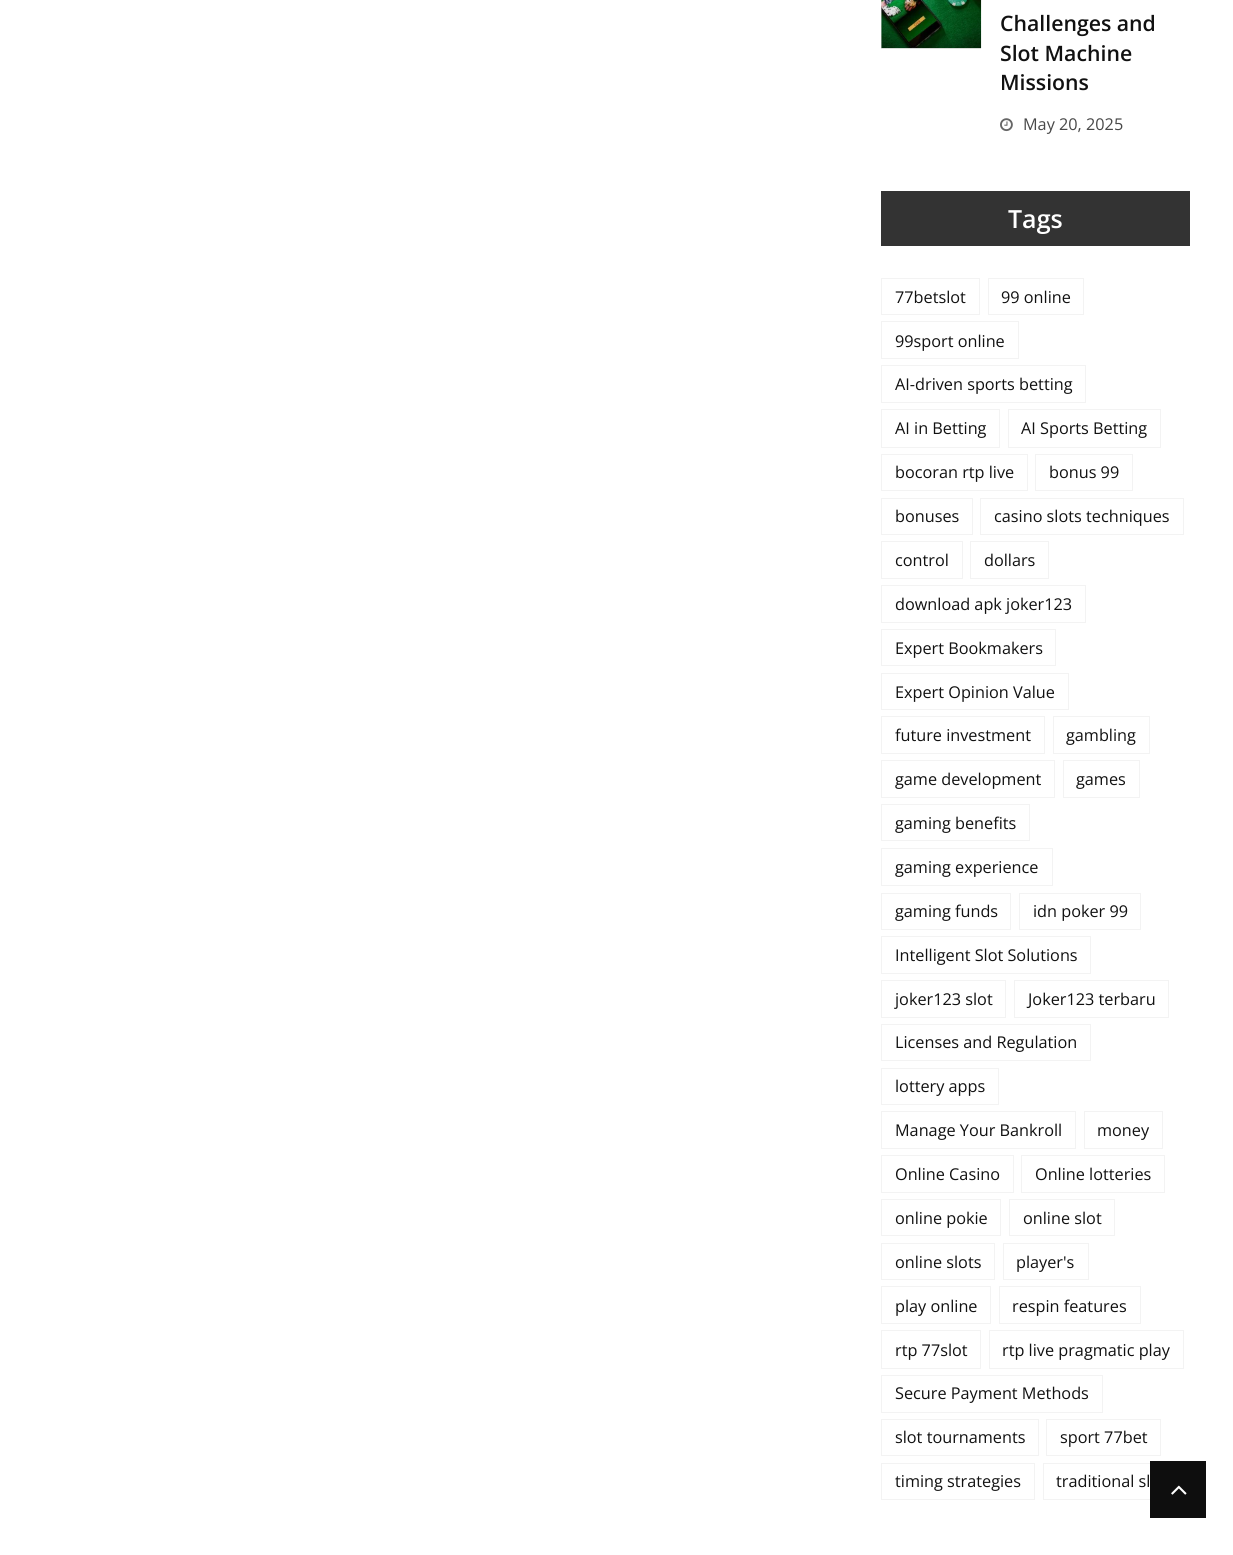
#include <cairo.h>
#include <math.h>
#include <stddef.h>

static cairo_t *c;
static void C(unsigned color){cairo_set_source_rgb(c, (color >> 16) / 255.0, (color >> 8 & 255) / 255.0, (color & 255) / 255.0);}
static void F(const char *family, double size, int italic, int bold){cairo_select_font_face(c, family, italic ? CAIRO_FONT_SLANT_ITALIC : CAIRO_FONT_SLANT_NORMAL,bold ? CAIRO_FONT_WEIGHT_BOLD : CAIRO_FONT_WEIGHT_NORMAL);cairo_set_font_size(c, size);}
static void T(double x, double y, const char *s){cairo_move_to(c, x, y);cairo_show_text(c, s);}
static void R(double x, double y, double w, double h){cairo_rectangle(c, x, y, w, h);cairo_fill(c);}
static void I(const char *path, double x, double y, double w, double h){cairo_surface_t *image = cairo_image_surface_create_from_png(path);cairo_save(c);cairo_set_source_surface(c, image, x, y);cairo_rectangle(c, x, y, w, h);cairo_fill(c);cairo_restore(c);cairo_surface_destroy(image);}
int main(void) {
cairo_surface_t *surface = cairo_image_surface_create(CAIRO_FORMAT_RGB24, 1233, 1555);
c = cairo_create(surface);
cairo_font_options_t *options = cairo_font_options_create();
cairo_font_options_set_hint_metrics(options, CAIRO_HINT_METRICS_OFF);
cairo_font_options_set_hint_style(options, CAIRO_HINT_STYLE_NONE);
cairo_set_font_options(c, options);
cairo_set_miter_limit(c, 4);
C(0xffffff);
cairo_paint(c);
C(0xe6e6e6);
R(881,0,100,49);
I("1.png",881,0,101,49);
F("Open Sans SemiBold",21.25,0,0);
C(0x111111);
T(1000,31,"Challenges and");
T(1000,61,"Slot Machine");
T(1000,90,"Missions");
I("2.png",1000,118,13,14);
F("Open Sans",16.25,0,0);
C(0x484848);
T(1023,130,"May 20, 2025");
C(0x333333);
R(881,191,309,55);
F("Open Sans SemiBold",25,0,0);
C(0xffffff);
T(1008,228,"Tags");
cairo_rectangle(c,881.5,278.5,98,36);
C(0xf3f3f3);
cairo_set_line_width(c,1);
cairo_stroke(c);
F("Open Sans",16.25,0,0);
C(0x111111);
T(895,303,"77betslot");
cairo_rectangle(c,988.5,278.5,95,36);
C(0xf3f3f3);
cairo_stroke(c);
C(0x111111);
T(1001,303,"99 online");
cairo_rectangle(c,881.5,321.5,137,37);
C(0xf3f3f3);
cairo_stroke(c);
C(0x111111);
T(895,347,"99sport online");
cairo_rectangle(c,881.5,365.5,204,37);
C(0xf3f3f3);
cairo_stroke(c);
C(0x111111);
T(895,390,"AI-driven sports betting");
cairo_rectangle(c,881.5,409.5,118,38);
C(0xf3f3f3);
cairo_stroke(c);
C(0x111111);
T(895,434,"AI in Betting");
cairo_rectangle(c,1008.5,409.5,152,38);
C(0xf3f3f3);
cairo_stroke(c);
C(0x111111);
T(1021,434,"AI Sports Betting");
cairo_rectangle(c,881.5,454.5,146,36);
C(0xf3f3f3);
cairo_stroke(c);
C(0x111111);
T(895,478,"bocoran rtp live");
cairo_rectangle(c,1035.5,454.5,97,36);
C(0xf3f3f3);
cairo_stroke(c);
C(0x111111);
T(1049,478,"bonus 99");
cairo_rectangle(c,881.5,498.5,91,36);
C(0xf3f3f3);
cairo_stroke(c);
C(0x111111);
T(895,522,"bonuses");
cairo_rectangle(c,980.5,498.5,203,36);
C(0xf3f3f3);
cairo_stroke(c);
C(0x111111);
T(994,522,"casino slots techniques");
cairo_rectangle(c,881.5,541.5,81,37);
C(0xf3f3f3);
cairo_stroke(c);
C(0x111111);
T(895,566,"control");
cairo_rectangle(c,970.5,541.5,78,37);
C(0xf3f3f3);
cairo_stroke(c);
C(0x111111);
T(984,566,"dollars");
cairo_rectangle(c,881.5,585.5,204,37);
C(0xf3f3f3);
cairo_stroke(c);
C(0x111111);
T(895,610,"download apk joker123");
cairo_rectangle(c,881.5,629.5,174,36);
C(0xf3f3f3);
cairo_stroke(c);
C(0x111111);
T(895,654,"Expert Bookmakers");
cairo_rectangle(c,881.5,673.5,187,36);
C(0xf3f3f3);
cairo_stroke(c);
C(0x111111);
T(895,698,"Expert Opinion Value");
cairo_rectangle(c,881.5,716.5,163,37);
C(0xf3f3f3);
cairo_stroke(c);
C(0x111111);
T(895,741,"future investment");
cairo_rectangle(c,1053.5,716.5,96,37);
C(0xf3f3f3);
cairo_stroke(c);
C(0x111111);
T(1066,741,"gambling");
cairo_rectangle(c,881.5,760.5,173,37);
C(0xf3f3f3);
cairo_stroke(c);
C(0x111111);
T(895,785,"game development");
cairo_rectangle(c,1063.5,760.5,76,37);
C(0xf3f3f3);
cairo_stroke(c);
C(0x111111);
T(1076,785,"games");
cairo_rectangle(c,881.5,804.5,148,36);
C(0xf3f3f3);
cairo_stroke(c);
C(0x111111);
T(895,829,"gaming benefits");
cairo_rectangle(c,881.5,848.5,171,37);
C(0xf3f3f3);
cairo_stroke(c);
C(0x111111);
T(895,873,"gaming experience");
cairo_rectangle(c,881.5,893.5,129,36);
C(0xf3f3f3);
cairo_stroke(c);
C(0x111111);
T(895,917,"gaming funds");
cairo_rectangle(c,1019.5,893.5,121,36);
C(0xf3f3f3);
cairo_stroke(c);
C(0x111111);
T(1033,917,"idn poker 99");
cairo_rectangle(c,881.5,936.5,209,37);
C(0xf3f3f3);
cairo_stroke(c);
C(0x111111);
T(895,961,"Intelligent Slot Solutions");
cairo_rectangle(c,881.5,980.5,124,37);
C(0xf3f3f3);
cairo_stroke(c);
C(0x111111);
T(895,1005,"joker123 slot");
cairo_rectangle(c,1014.5,980.5,154,37);
C(0xf3f3f3);
cairo_stroke(c);
C(0x111111);
T(1028,1005,"Joker123 terbaru");
cairo_rectangle(c,881.5,1024.5,209,36);
C(0xf3f3f3);
cairo_stroke(c);
C(0x111111);
T(895,1048,"Licenses and Regulation");
cairo_rectangle(c,881.5,1068.5,117,36);
C(0xf3f3f3);
cairo_stroke(c);
C(0x111111);
T(895,1092,"lottery apps");
cairo_rectangle(c,881.5,1111.5,194,37);
C(0xf3f3f3);
cairo_stroke(c);
C(0x111111);
T(895,1136,"Manage Your Bankroll");
cairo_rectangle(c,1084.5,1111.5,78,37);
C(0xf3f3f3);
cairo_stroke(c);
C(0x111111);
T(1097,1136,"money");
cairo_rectangle(c,881.5,1155.5,132,37);
C(0xf3f3f3);
cairo_stroke(c);
C(0x111111);
T(895,1180,"Online Casino");
cairo_rectangle(c,1021.5,1155.5,143,37);
C(0xf3f3f3);
cairo_stroke(c);
C(0x111111);
T(1035,1180,"Online lotteries");
cairo_rectangle(c,881.5,1199.5,119,36);
C(0xf3f3f3);
cairo_stroke(c);
C(0x111111);
T(895,1224,"online pokie");
cairo_rectangle(c,1009.5,1199.5,105,36);
C(0xf3f3f3);
cairo_stroke(c);
C(0x111111);
T(1023,1224,"online slot");
cairo_rectangle(c,881.5,1243.5,113,36);
C(0xf3f3f3);
cairo_stroke(c);
C(0x111111);
T(895,1268,"online slots");
cairo_rectangle(c,1003.5,1243.5,85,36);
C(0xf3f3f3);
cairo_stroke(c);
C(0x111111);
T(1016,1268,"player's");
cairo_rectangle(c,881.5,1286.5,109,37);
C(0xf3f3f3);
cairo_stroke(c);
C(0x111111);
T(895,1312,"play online");
cairo_rectangle(c,999.5,1286.5,141,37);
C(0xf3f3f3);
cairo_stroke(c);
C(0x111111);
T(1012,1312,"respin features");
cairo_rectangle(c,881.5,1330.5,99,38);
C(0xf3f3f3);
cairo_stroke(c);
C(0x111111);
T(895,1356,"rtp 77slot");
cairo_rectangle(c,989.5,1330.5,194,38);
C(0xf3f3f3);
cairo_stroke(c);
C(0x111111);
T(1002,1356,"rtp live pragmatic play");
cairo_rectangle(c,881.5,1375.5,221,37);
C(0xf3f3f3);
cairo_stroke(c);
C(0x111111);
T(895,1399,"Secure Payment Methods");
cairo_rectangle(c,881.5,1419.5,157,36);
C(0xf3f3f3);
cairo_stroke(c);
C(0x111111);
T(895,1443,"slot tournaments");
cairo_rectangle(c,1046.5,1419.5,114,36);
C(0xf3f3f3);
cairo_stroke(c);
C(0x111111);
T(1060,1443,"sport 77bet");
cairo_rectangle(c,881.5,1463.5,153,36);
C(0xf3f3f3);
cairo_stroke(c);
C(0x111111);
T(895,1487,"timing strategies");
cairo_rectangle(c,1043.5,1463.5,136,36);
C(0xf3f3f3);
cairo_stroke(c);
C(0x111111);
T(1056,1487,"traditional sl");
C(0x0e0e0e);
R(1150,1461,56,57);
I("3.png",1171,1485,16,10);
cairo_surface_write_to_png(surface, "o.png");
cairo_font_options_destroy(options);
cairo_destroy(c);
cairo_surface_destroy(surface);
return 0;
}
